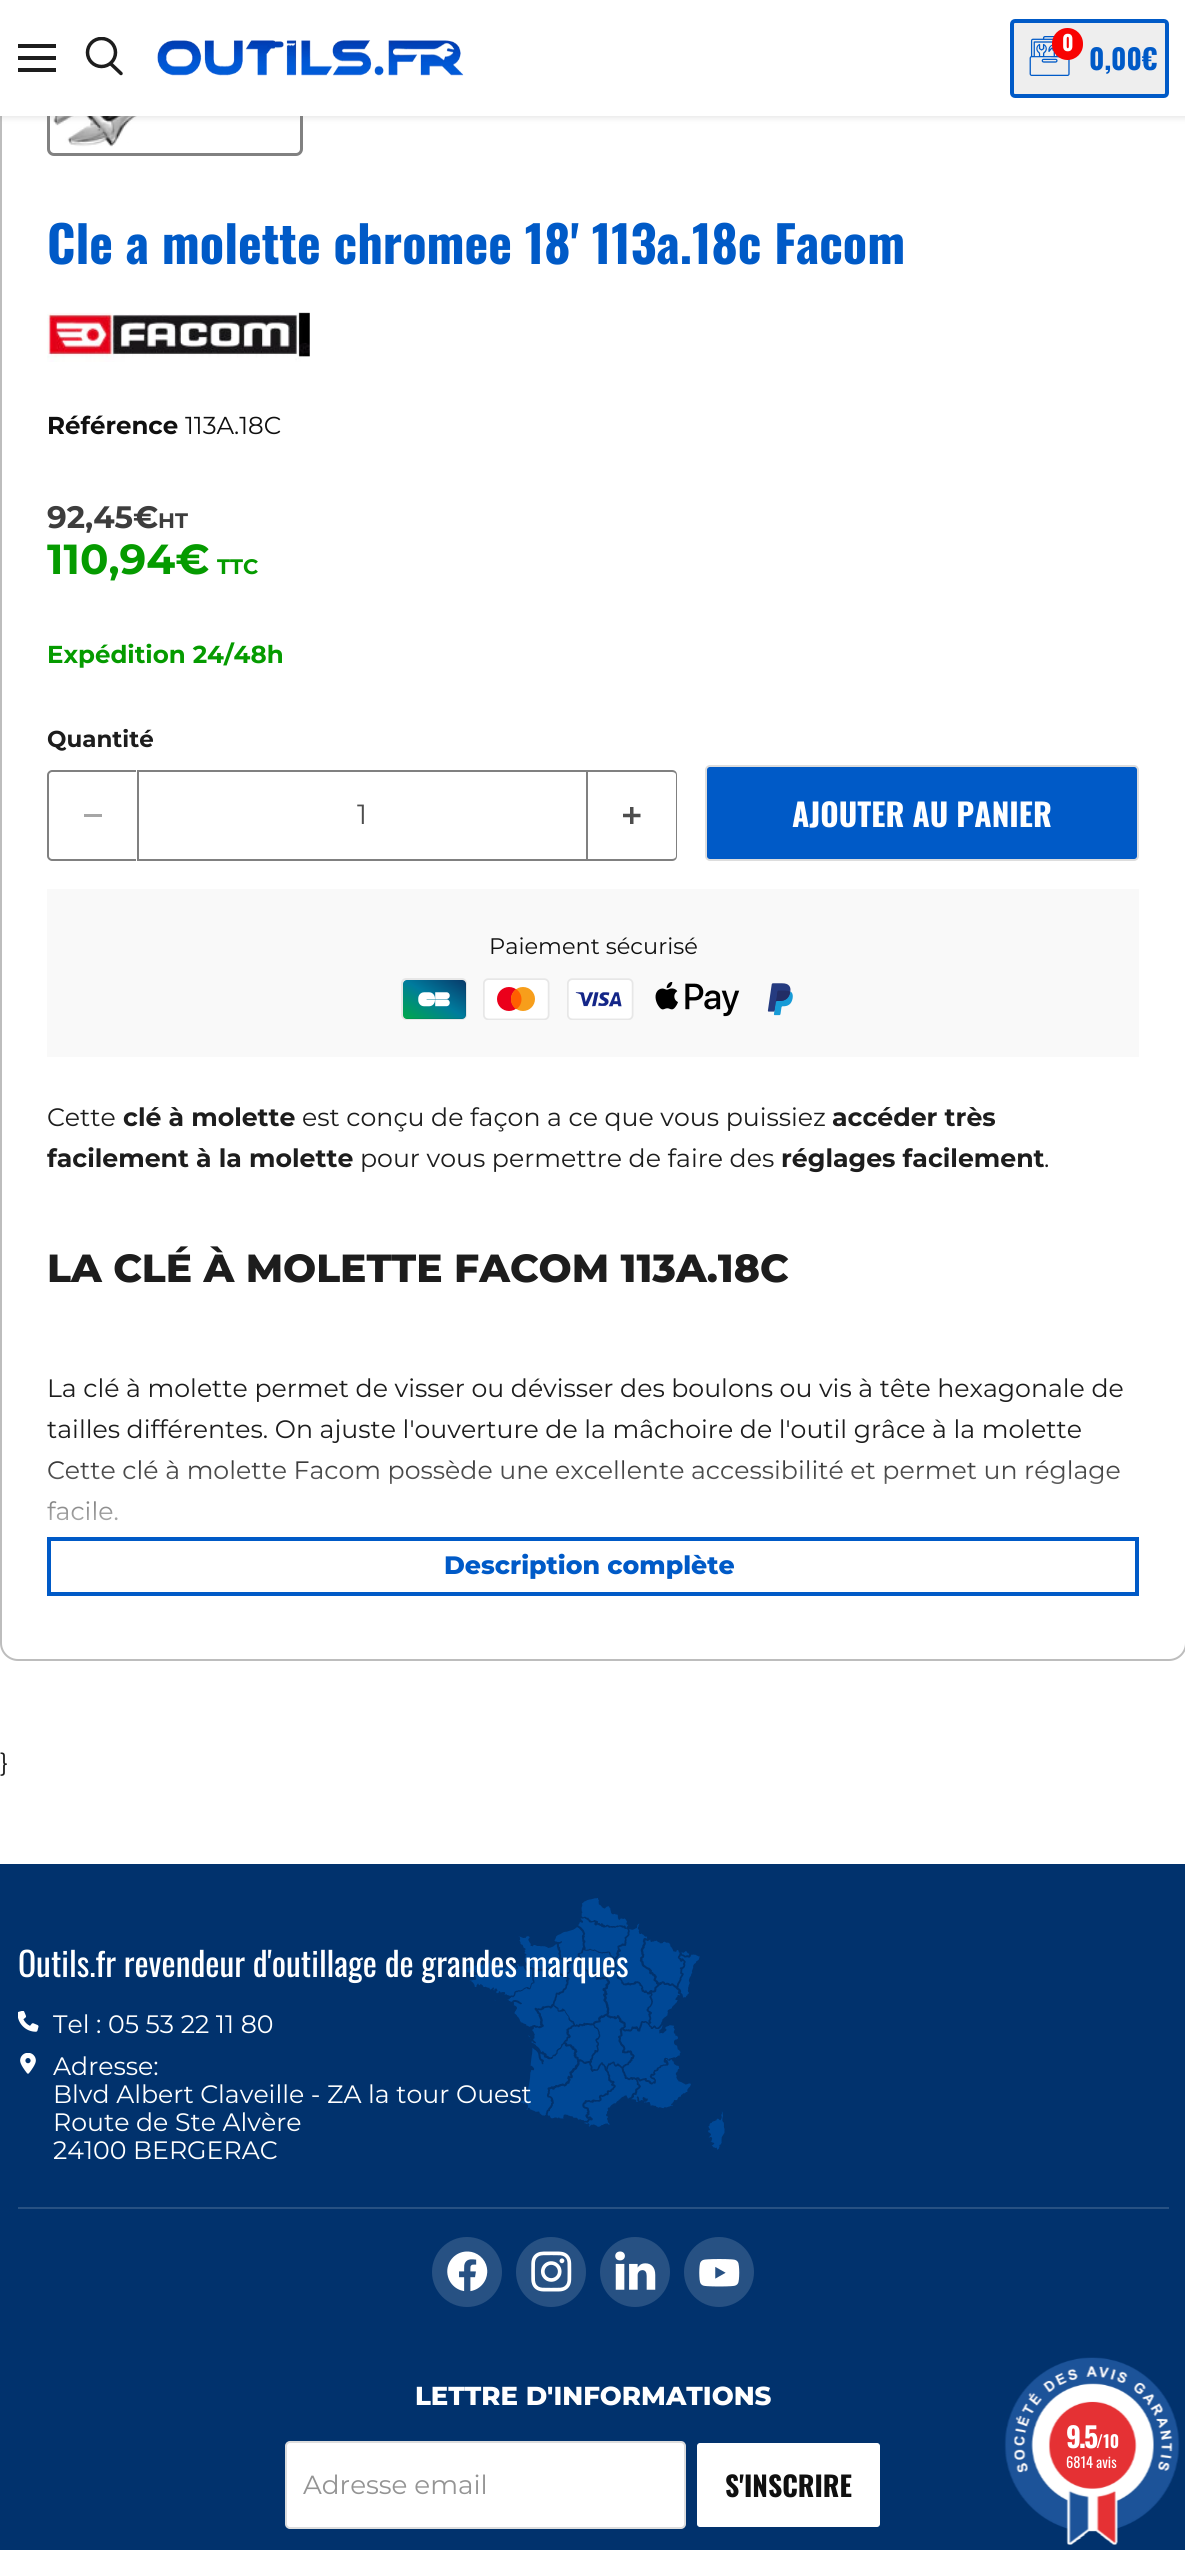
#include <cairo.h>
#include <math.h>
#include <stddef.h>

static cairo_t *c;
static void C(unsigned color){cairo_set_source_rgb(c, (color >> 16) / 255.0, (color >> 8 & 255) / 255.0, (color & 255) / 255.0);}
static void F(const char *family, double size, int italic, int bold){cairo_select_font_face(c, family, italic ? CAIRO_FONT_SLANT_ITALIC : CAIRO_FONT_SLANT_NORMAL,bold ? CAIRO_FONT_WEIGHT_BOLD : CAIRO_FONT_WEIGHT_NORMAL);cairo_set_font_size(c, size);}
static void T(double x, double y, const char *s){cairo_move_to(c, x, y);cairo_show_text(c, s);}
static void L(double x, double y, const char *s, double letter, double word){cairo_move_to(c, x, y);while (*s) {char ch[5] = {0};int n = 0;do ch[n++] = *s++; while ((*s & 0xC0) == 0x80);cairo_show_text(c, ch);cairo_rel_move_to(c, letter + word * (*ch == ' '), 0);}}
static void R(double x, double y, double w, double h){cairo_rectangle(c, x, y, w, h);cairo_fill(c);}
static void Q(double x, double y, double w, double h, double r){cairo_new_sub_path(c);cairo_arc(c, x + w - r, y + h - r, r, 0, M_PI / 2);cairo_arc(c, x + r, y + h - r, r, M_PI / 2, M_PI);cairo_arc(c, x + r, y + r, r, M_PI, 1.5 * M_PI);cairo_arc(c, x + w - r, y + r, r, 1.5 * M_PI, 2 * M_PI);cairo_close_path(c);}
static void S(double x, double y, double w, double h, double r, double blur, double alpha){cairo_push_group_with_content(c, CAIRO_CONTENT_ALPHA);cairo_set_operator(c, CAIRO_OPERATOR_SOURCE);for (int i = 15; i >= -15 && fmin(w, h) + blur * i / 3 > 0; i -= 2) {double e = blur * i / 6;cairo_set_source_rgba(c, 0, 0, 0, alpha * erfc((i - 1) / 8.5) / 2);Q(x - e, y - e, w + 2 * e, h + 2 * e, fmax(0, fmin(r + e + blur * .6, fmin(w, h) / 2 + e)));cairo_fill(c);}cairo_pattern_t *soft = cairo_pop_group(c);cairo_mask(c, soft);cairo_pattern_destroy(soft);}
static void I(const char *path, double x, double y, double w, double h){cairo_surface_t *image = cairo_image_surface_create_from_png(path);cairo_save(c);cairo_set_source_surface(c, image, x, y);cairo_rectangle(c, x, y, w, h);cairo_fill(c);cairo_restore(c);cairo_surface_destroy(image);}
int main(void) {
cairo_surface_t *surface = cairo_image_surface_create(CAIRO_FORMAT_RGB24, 1185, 2550);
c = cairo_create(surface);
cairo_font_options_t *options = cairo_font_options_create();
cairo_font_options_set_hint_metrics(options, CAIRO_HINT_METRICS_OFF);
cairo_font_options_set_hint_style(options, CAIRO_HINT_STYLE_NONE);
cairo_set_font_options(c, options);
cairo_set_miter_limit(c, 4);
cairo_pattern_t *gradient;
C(0xffffff);
cairo_paint(c);
Q(1,-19,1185,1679,17);
C(0xbdbdbd);
cairo_stroke(c);
Q(48.5,40.5,253,114,5.5);
C(0x818181);
cairo_set_line_width(c,3);
cairo_stroke(c);
I("3.png",53,116,84,31);
C(0x808080);
S(0,2,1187,115,0,3.5,.25);
C(0xffffff);
R(0,0,1185,116);
C(0x1d1d1d);
R(18,44,38,4);
R(18,56,38,4);
R(18,68,38,4);
cairo_new_path(c);
cairo_move_to(c,121,73.5);
cairo_line_to(c,111,64);
cairo_set_line_width(c,3.5);
cairo_set_line_cap(c,CAIRO_LINE_CAP_ROUND);
cairo_stroke(c);
cairo_save(c);
cairo_rectangle(c,84,37,40,42);
cairo_clip(c);
cairo_arc(c,101.5,52.5,14,0,2 * M_PI);
cairo_set_line_cap(c,CAIRO_LINE_CAP_BUTT);
cairo_stroke(c);
cairo_restore(c);
I("1.png",157,40,307,36);
C(0xeeeeee);
Q(1012,21,155,75,3);
cairo_fill_preserve(c);
C(0x005ac7);
cairo_set_line_width(c,4);
cairo_set_line_cap(c,CAIRO_LINE_CAP_BUTT);
cairo_stroke(c);
I("2.png",1029,36,41,40);
C(0xf80302);
Q(1052,28,31,32,15.5);
cairo_fill(c);
F("Oswald",21,0,1);
C(0xffffff);
T(1062,51,"0");
F("Oswald",28,0,1);
C(0x005ac7);
T(1089,70,"0,00€");
F("Oswald",50.4,0,1);
T(47,264,"Cle a molette chromee 18' 113a.18c Facom");
I("4.png",47,312,263,50);
F("Montserrat",24.5,0,1);
C(0x101010);
T(47,434,"Référence");
F("Montserrat",24.5,0,0);
T(185,434,"113A.18C");
F("Montserrat",31,0,1);
C(0x3d3d3d);
T(47,528,"92,45€");
F("Montserrat",21,0,1);
T(158,528,"HT");
F("Montserrat",42,0,1);
C(0x059b00);
T(47,574,"110,94€");
F("Montserrat",21,0,1);
T(217,574,"TTC");
F("Montserrat",24.5,0,1);
T(47,663,"Expédition 24/48h");
F("Montserrat",23,0,1);
C(0x1d1d1d);
T(47,747,"Quantité");
C(0x808080);
cairo_set_fill_rule(c,CAIRO_FILL_RULE_EVEN_ODD);
cairo_new_path(c);
cairo_move_to(c,52,770);
cairo_line_to(c,136,770);
cairo_line_to(c,136,861);
cairo_line_to(c,52,861);
cairo_curve_to(c,50,861,47,859,47,856);
cairo_line_to(c,47,775);
cairo_curve_to(c,47,772,50,770,52,770);
cairo_close_path(c);
cairo_move_to(c,52,772);
cairo_line_to(c,136,772);
cairo_line_to(c,136,859);
cairo_line_to(c,52,859);
cairo_curve_to(c,51,859,49,858,49,856);
cairo_line_to(c,49,775);
cairo_curve_to(c,49,773,51,772,52,772);
cairo_close_path(c);
cairo_fill(c);
C(0xa6a6a6);
R(84,814,18,3);
cairo_rectangle(c,138,771,449,89);
C(0x808080);
cairo_set_line_width(c,2);
cairo_stroke(c);
F("Montserrat",27.75,0,0);
C(0x4d4d4d);
T(357,824,"1");
C(0x808080);
cairo_new_path(c);
cairo_move_to(c,588,770);
cairo_line_to(c,672,770);
cairo_curve_to(c,675,770,677,772,677,775);
cairo_line_to(c,677,856);
cairo_curve_to(c,677,859,675,861,672,861);
cairo_line_to(c,588,861);
cairo_close_path(c);
cairo_move_to(c,588,772);
cairo_line_to(c,672,772);
cairo_curve_to(c,674,772,676,773,676,775);
cairo_line_to(c,676,856);
cairo_curve_to(c,676,858,674,859,672,859);
cairo_line_to(c,588,859);
cairo_close_path(c);
cairo_fill(c);
I("5.png",623,807,18,17);
C(0x005ac7);
Q(706,766,432,94,4);
cairo_fill_preserve(c);
C(0xdddddd);
cairo_stroke(c);
F("Oswald",31.5,0,1);
C(0xffffff);
T(792,827,"AJOUTER AU PANIER");
C(0xf9f9f9);
R(47,889,1092,168);
F("Montserrat",22.5,0,0);
C(0x101010);
T(489,954,"Paiement sécurisé");
I("6.png",401,978,66,42);
I("7.png",483,978,67,42);
I("8.png",567,978,67,42);
I("9.png",655,982,85,35);
I("10.png",767,983,26,33);
F("Montserrat",25.2,0,0);
C(0x1d1d1d);
T(47,1126,"Cette");
F("Montserrat",25.2,0,1);
T(123,1126,"clé à molette");
F("Montserrat",25.2,0,0);
T(302,1126,"est conçu de façon a ce que vous puissiez");
F("Montserrat",25.2,0,1);
T(832,1126,"accéder très");
T(47,1167,"facilement à la molette");
F("Montserrat",25.2,0,0);
T(360,1167,"pour vous permettre de faire des");
F("Montserrat",25.2,0,1);
T(781,1167,"réglages facilement");
F("Montserrat",25.2,0,0);
T(1044,1167,".");
F("Montserrat ExtraBold",39.2,0,0);
T(47,1282,"LA CLÉ À MOLETTE FACOM 113A.18C");
F("Montserrat",25.2,0,0);
T(47,1397,"La clé à molette permet de visser ou dévisser des boulons ou vis à tête hexagonale de");
T(47,1438,"tailles différentes. On ajuste l'ouverture de la mâchoire de l'outil grâce à la molette");
T(47,1479,"Cette clé à molette Facom possède une excellente accessibilité et permet un réglage");
T(47,1520,"facile.");
gradient = cairo_pattern_create_linear(593,1449,593,1624);
cairo_pattern_add_color_stop_rgba(gradient,0,1,1,1,0);
cairo_pattern_add_color_stop_rgba(gradient,.6,1,1,1,.9);
cairo_pattern_add_color_stop_rgba(gradient,1,1,1,1,1);
cairo_set_source(c,gradient);
cairo_pattern_destroy(gradient);
R(47,1460,1073,61);
cairo_rectangle(c,49,1539,1088,55);
C(0x005ac7);
cairo_set_line_width(c,4);
cairo_stroke(c);
F("Montserrat ExtraBold",25.2,0,0);
T(444,1574,"Description complète");
F("Montserrat",25,0,0);
C(0x1d1d1d);
T(0,1771,"}");
C(0x01326d);
R(0,1864,1185,686);
C(0x275183);
R(18,2207,1151,2);
I("11.png",466,1898,259,252);
F("Oswald",33.6,0,0);
C(0xffffff);
T(18,1977,"Outils.fr revendeur d'outillage de grandes marques");
I("12.png",18,2011,21,21);
F("Montserrat",25.2,0,0);
T(53,2033,"Tel : 05 53 22 11 80");
I("13.png",20,2053,16,21);
T(53,2075,"Adresse:");
T(53,2103,"Blvd Albert Claveille - ZA la tour Ouest");
T(53,2131,"Route de Ste Alvère");
T(53,2159,"24100 BERGERAC");
C(0x275183);
cairo_new_path(c);
cairo_arc(c,467,2272,35,0,2 * M_PI);
cairo_fill(c);
I("14.png",447,2251,41,41);
cairo_arc(c,551,2272,35,0,2 * M_PI);
cairo_fill(c);
I("15.png",531,2251,41,41);
cairo_arc(c,635,2272,35,0,2 * M_PI);
cairo_fill(c);
I("16.png",615,2251,41,39);
cairo_arc(c,719,2272,35,0,2 * M_PI);
cairo_fill(c);
I("17.png",699,2259,41,28);
F("Montserrat ExtraBold",26,0,0);
C(0xffffff);
T(415,2405,"LETTRE D'INFORMATIONS");
Q(286,2442,399,86,4);
cairo_fill_preserve(c);
C(0xdddddd);
cairo_set_line_width(c,2);
cairo_stroke(c);
F("Montserrat",26.25,0,0);
C(0x949494);
T(303,2494,"Adresse email");
C(0xffffff);
Q(696,2442,185,86,4);
cairo_fill_preserve(c);
C(0x01326d);
cairo_stroke(c);
F("Oswald",27.75,0,1);
C(0x101010);
T(725,2497,"S'INSCRIRE");
I("18.png",1004,2357,176,188);
F("Oswald",28,0,1);
C(0xffffff);
L(1066,2448,"9.5",-2,0);
F("Oswald",17,0,1);
T(1096,2448,"/10");
F("Oswald",14.5,0,0);
T(1066,2468,"6814 avis");
cairo_surface_write_to_png(surface, "o.png");
cairo_font_options_destroy(options);
cairo_destroy(c);
cairo_surface_destroy(surface);
return 0;
}
